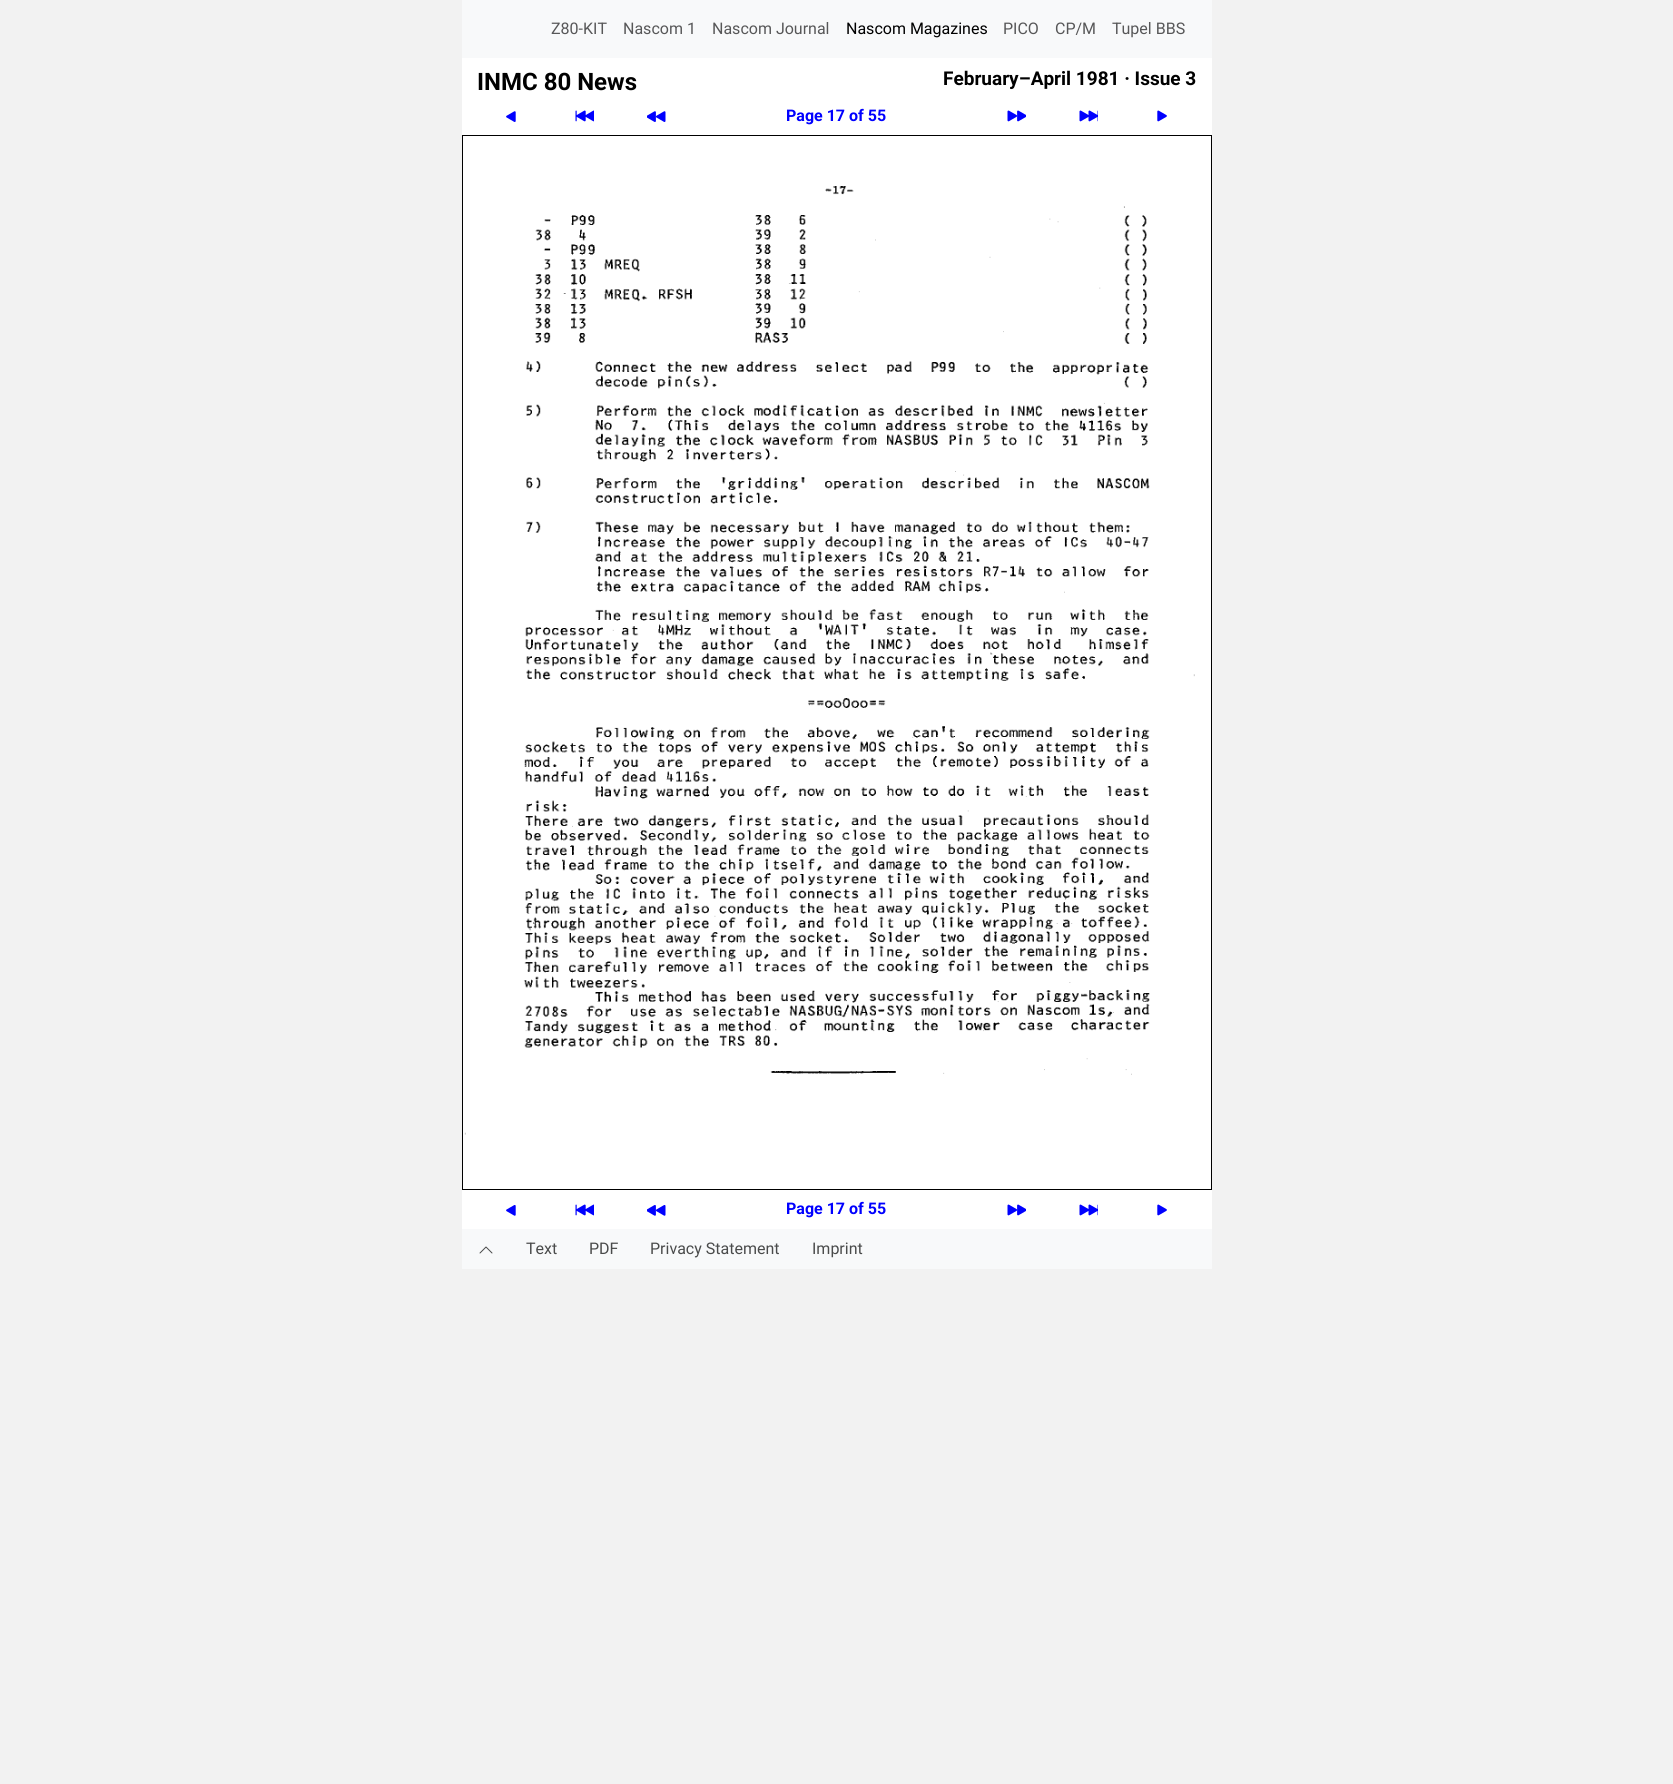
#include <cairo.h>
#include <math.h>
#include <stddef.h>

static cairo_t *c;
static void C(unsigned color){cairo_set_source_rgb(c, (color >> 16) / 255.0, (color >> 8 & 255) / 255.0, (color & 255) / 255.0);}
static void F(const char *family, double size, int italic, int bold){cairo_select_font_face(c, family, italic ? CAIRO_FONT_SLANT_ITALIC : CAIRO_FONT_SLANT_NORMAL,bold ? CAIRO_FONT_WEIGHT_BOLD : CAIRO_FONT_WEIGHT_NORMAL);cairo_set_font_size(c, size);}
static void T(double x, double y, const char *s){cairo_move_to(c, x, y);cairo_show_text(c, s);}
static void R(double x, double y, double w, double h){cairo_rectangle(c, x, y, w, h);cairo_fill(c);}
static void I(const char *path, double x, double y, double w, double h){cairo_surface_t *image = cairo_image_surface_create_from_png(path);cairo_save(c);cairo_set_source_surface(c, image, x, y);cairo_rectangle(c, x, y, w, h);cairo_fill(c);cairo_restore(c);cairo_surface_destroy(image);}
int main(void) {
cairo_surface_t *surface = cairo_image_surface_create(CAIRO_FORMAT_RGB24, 1673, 1784);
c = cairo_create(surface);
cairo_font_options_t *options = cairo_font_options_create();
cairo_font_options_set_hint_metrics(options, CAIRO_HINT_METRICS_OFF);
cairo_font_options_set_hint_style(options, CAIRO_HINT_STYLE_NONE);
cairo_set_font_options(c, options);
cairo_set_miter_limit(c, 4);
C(0xf2f2f2);
cairo_paint(c);
C(0xf8f9fa);
R(462,0,750,58);
F("Roboto",16,0,0);
C(0x575758);
T(551,34,"Z80-KIT");
T(623,34,"Nascom 1");
T(712,34,"Nascom Journal");
C(0x000000);
T(846,34,"Nascom Magazines");
C(0x575758);
T(1003,34,"PICO");
T(1055,34,"CP/M");
T(1112,34,"Tupel BBS");
C(0xffffff);
R(462,58,750,1171);
F("Roboto",24,0,1);
C(0x000000);
T(477,90,"INMC 80 News");
F("Roboto",19,0,1);
T(943,85,"February–April 1981 · Issue 3");
I("1.png",506,111,10,11);
I("2.png",575,110,19,12);
I("3.png",647,111,19,11);
F("Roboto",16,0,1);
C(0x0000ff);
T(786,121,"Page 17 of 55");
I("4.png",1007,110,19,12);
I("5.png",1079,110,19,12);
I("6.png",1157,110,10,12);
cairo_rectangle(c,462.5,135.5,749,1054);
C(0x000000);
cairo_set_line_width(c,1);
cairo_stroke(c);
I("7.png",464,186,731,949);
I("8.png",506,1205,10,11);
I("9.png",575,1204,19,12);
I("10.png",647,1205,19,11);
C(0x0000ff);
T(786,1214,"Page 17 of 55");
I("11.png",1007,1204,19,12);
I("12.png",1079,1204,19,12);
I("13.png",1157,1204,10,12);
C(0xf8f9fa);
R(462,1229,750,40);
I("14.png",479,1246,14,8);
F("Roboto",16,0,0);
C(0x4a4b4b);
T(526,1254,"Text");
T(589,1254,"PDF");
T(650,1254,"Privacy Statement");
T(812,1254,"Imprint");
cairo_surface_write_to_png(surface, "o.png");
cairo_font_options_destroy(options);
cairo_destroy(c);
cairo_surface_destroy(surface);
return 0;
}
